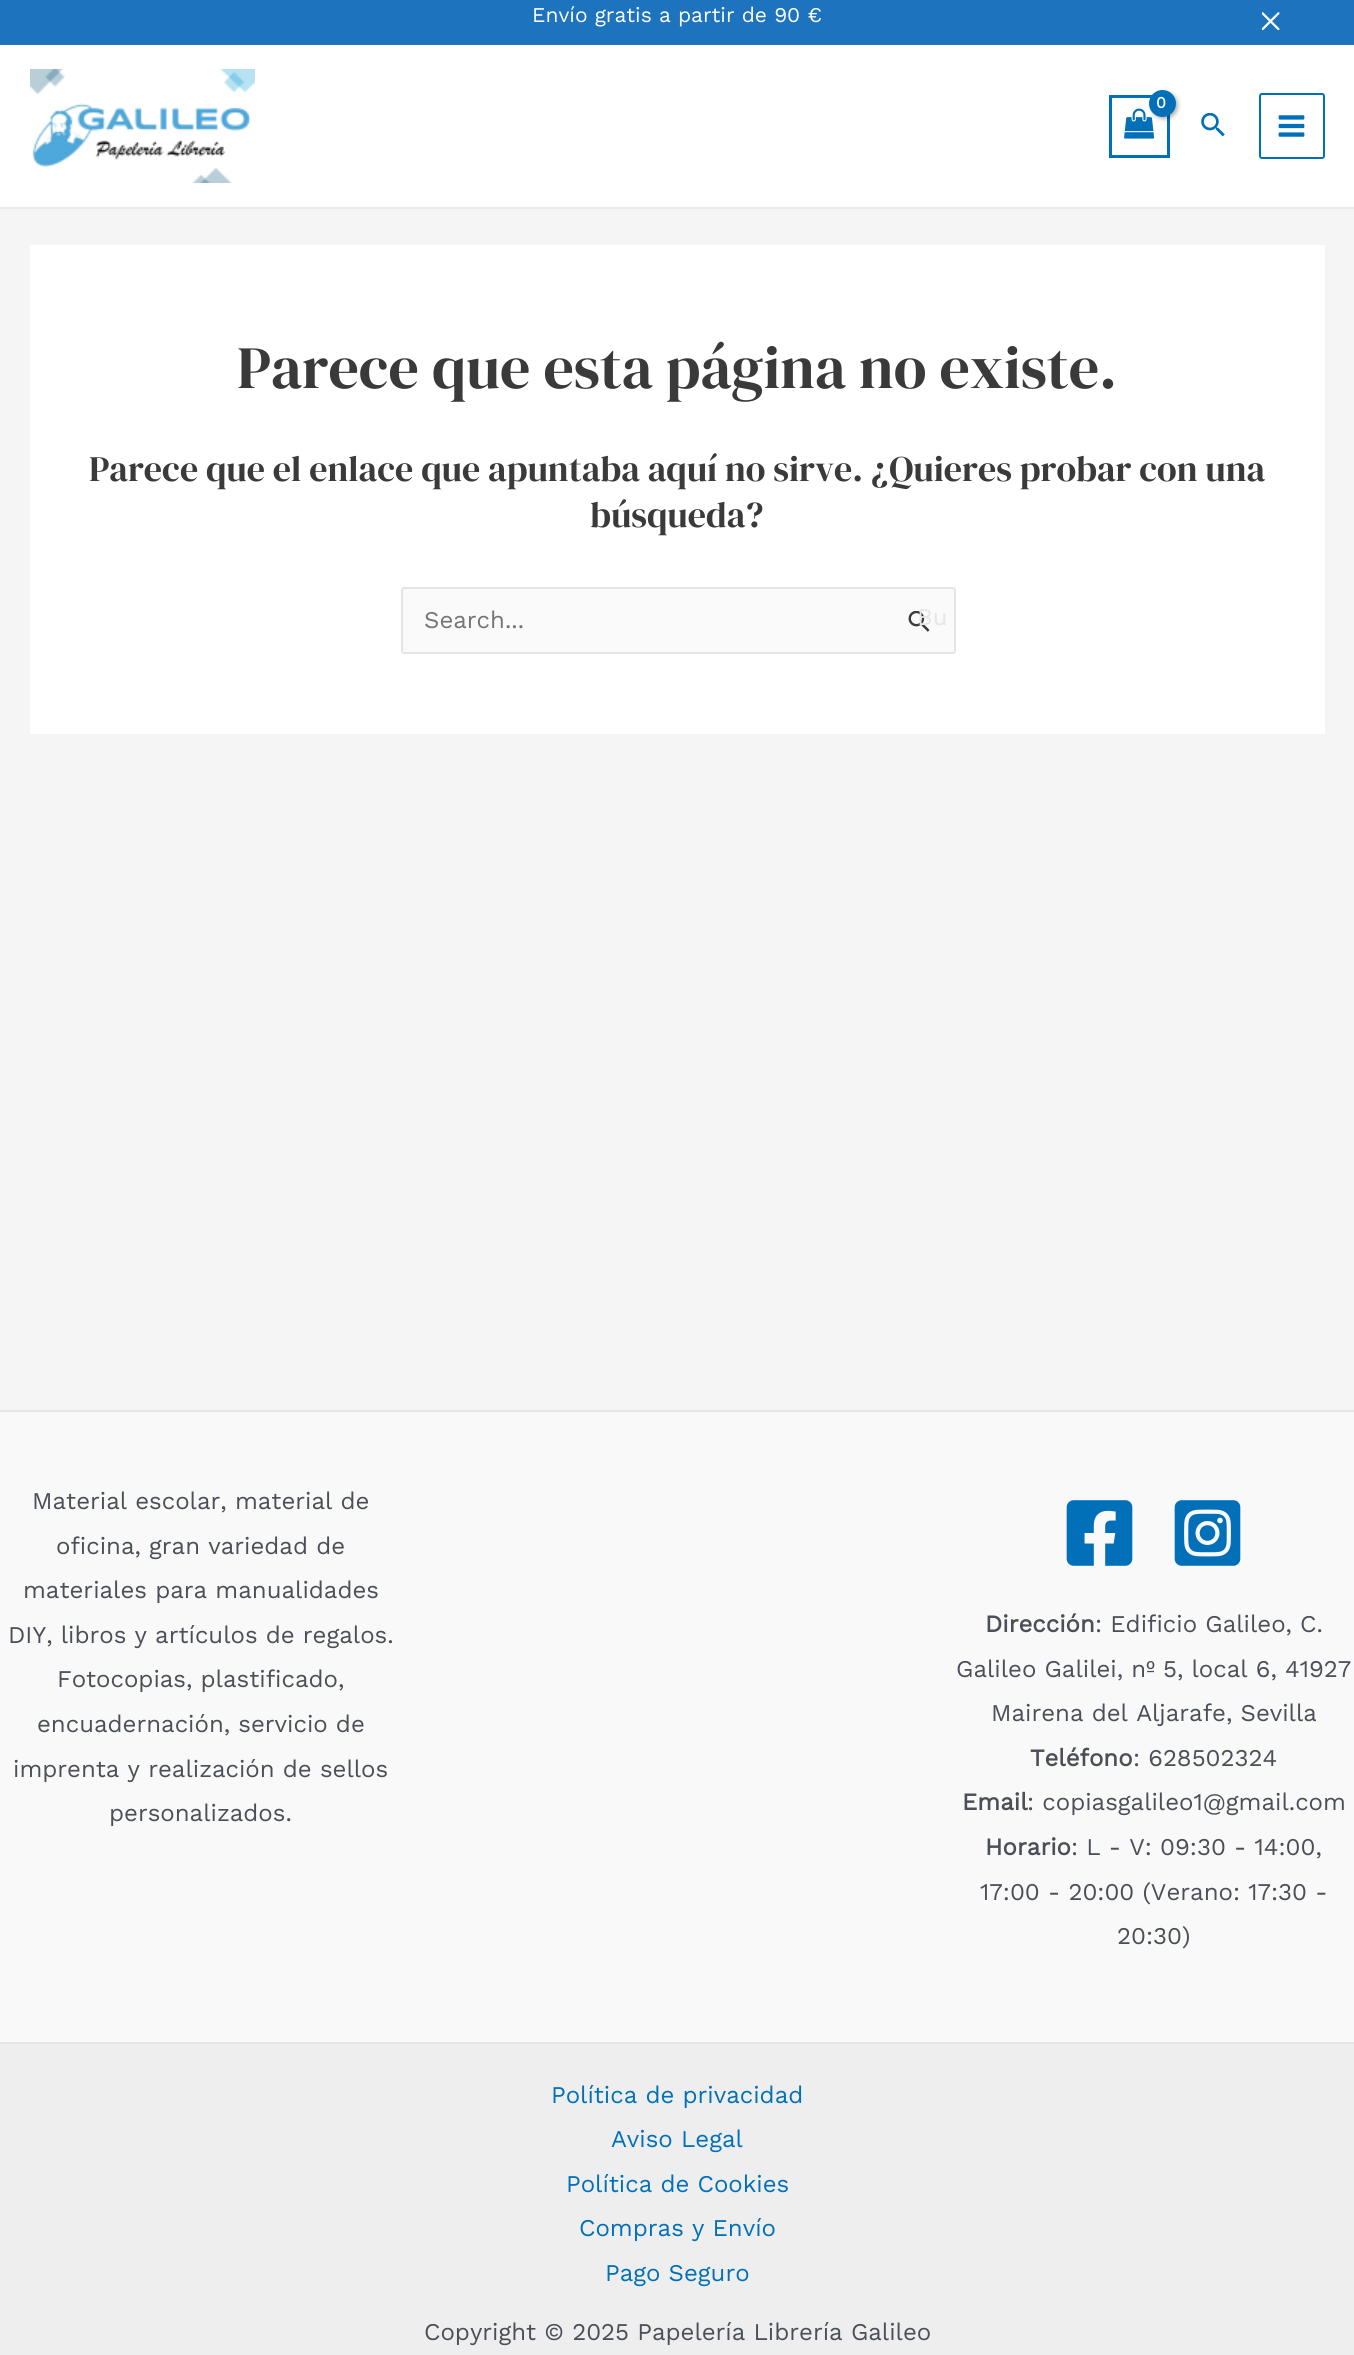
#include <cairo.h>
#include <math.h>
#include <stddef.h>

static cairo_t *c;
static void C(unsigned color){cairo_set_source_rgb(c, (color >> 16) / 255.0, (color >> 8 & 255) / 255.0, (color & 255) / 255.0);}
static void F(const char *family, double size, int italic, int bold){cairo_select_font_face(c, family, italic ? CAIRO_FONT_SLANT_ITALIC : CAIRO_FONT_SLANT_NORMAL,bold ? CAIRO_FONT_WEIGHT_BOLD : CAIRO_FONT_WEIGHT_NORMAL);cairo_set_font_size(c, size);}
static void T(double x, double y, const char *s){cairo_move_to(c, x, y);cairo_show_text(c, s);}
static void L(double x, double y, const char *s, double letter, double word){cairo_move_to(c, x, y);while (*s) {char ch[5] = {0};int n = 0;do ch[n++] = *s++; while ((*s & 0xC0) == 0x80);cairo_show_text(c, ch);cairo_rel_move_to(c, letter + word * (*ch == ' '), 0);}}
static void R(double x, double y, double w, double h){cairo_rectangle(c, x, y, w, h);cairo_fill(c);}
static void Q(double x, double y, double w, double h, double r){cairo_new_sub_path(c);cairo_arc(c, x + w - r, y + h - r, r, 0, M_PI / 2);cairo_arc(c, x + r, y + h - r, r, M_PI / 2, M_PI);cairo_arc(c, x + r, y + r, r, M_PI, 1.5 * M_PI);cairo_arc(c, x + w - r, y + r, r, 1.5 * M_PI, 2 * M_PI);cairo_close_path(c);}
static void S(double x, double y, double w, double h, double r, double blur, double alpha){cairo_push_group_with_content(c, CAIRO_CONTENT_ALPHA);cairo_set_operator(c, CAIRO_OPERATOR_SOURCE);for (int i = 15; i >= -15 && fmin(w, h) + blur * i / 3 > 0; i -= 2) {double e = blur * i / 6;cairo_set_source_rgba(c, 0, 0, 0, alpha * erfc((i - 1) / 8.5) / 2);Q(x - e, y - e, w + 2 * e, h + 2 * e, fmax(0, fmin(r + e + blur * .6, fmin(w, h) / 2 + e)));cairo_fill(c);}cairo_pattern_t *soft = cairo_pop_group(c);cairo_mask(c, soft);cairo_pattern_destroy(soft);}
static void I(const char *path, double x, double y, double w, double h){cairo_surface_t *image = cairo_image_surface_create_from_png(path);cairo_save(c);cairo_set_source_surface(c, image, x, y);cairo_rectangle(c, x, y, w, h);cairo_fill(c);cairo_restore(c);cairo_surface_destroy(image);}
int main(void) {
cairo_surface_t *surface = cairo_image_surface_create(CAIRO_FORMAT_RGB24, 1354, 2355);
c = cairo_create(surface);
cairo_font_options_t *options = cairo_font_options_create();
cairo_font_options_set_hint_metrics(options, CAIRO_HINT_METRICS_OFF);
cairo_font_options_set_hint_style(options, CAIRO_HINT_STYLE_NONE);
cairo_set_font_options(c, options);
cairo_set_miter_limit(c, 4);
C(0xf5f5f5);
cairo_paint(c);
C(0x1e73be);
R(0,0,1354,45);
F("Work Sans",21,0,0);
C(0xffffff);
T(532,22,"Envío gratis a partir de 90 €");
I("1.png",1262,12,18,18);
R(0,45,1354,162);
C(0xeaeaea);
R(0,207,1354,2);
I("2.png",30,69,225,114);
cairo_rectangle(c,1110.5,96.5,58,60);
C(0x0170b9);
cairo_set_line_width(c,3);
cairo_stroke(c);
I("3.png",1124,108,31,31);
C(0x000000);
S(1151,92,27,27,13.5,2,.3);
C(0x0170b9);
cairo_arc(c,1162.5,103.5,13.5,0,2 * M_PI);
cairo_fill(c);
F("Work Sans",16,0,1);
C(0xffffff);
L(1156,108,"0",-1,0);
Q(1260,94,64,64,2);
C(0x0170b9);
cairo_set_line_width(c,2);
cairo_stroke(c);
I("4.png",1278,115,27,22);
I("5.png",1201,113,24,24);
C(0xffffff);
R(30,245,1295,489);
F("DM Serif Display",60,0,0);
C(0x3a3a3a);
T(237,388,"Parece que esta página no existe.");
F("DM Serif Display",36,0,0);
T(89,481,"Parece que el enlace que apuntaba aquí no sirve. ¿Quieres probar con una");
T(590,527,"búsqueda?");
C(0xfafafa);
Q(402,588,553,65,2);
cairo_fill_preserve(c);
C(0xe5e5e5);
cairo_stroke(c);
F("Work Sans",24,0,0);
C(0x757575);
T(424,628,"Search...");
I("6.png",908,611,22,21);
C(0xe6e6e6);
T(917,625,"Bu");
C(0xf9f9f9);
R(0,1412,1354,630);
C(0xe6e6e6);
R(0,1410,1354,2);
C(0x4b4f58);
T(32,1509,"Material escolar, material de");
T(56,1554,"oficina, gran variedad de");
T(23,1598,"materiales para manualidades");
T(8,1643,"DIY, libros y artículos de regalos.");
T(57,1687,"Fotocopias, plastificado,");
T(37,1732,"encuadernación, servicio de");
T(13,1777,"imprenta y realización de sellos");
T(109,1821,"personalizados.");
I("7.png",1066,1500,67,66);
I("8.png",1174,1500,67,66);
F("Work Sans",24,0,1);
T(985,1632,"Dirección");
F("Work Sans",24,0,0);
T(1095,1632,": Edificio Galileo, C.");
T(956,1677,"Galileo Galilei, nº 5, local 6, 41927");
T(991,1721,"Mairena del Aljarafe, Sevilla");
F("Work Sans",24,0,1);
T(1030,1766,"Teléfono");
F("Work Sans",24,0,0);
T(1133,1766,": 628502324");
F("Work Sans",24,0,1);
T(962,1810,"Email");
F("Work Sans",24,0,0);
T(1027,1810,": copiasgalileo1@gmail.com");
F("Work Sans",24,0,1);
T(985,1855,"Horario");
F("Work Sans",24,0,0);
T(1071,1855,": L - V: 09:30 - 14:00,");
T(980,1900,"17:00 - 20:00 (Verano: 17:30 -");
T(1117,1944,"20:30)");
C(0xeeeeee);
R(0,2044,1354,311);
C(0xe5e5e5);
R(0,2042,1354,2);
C(0x0170b9);
T(551,2103,"Política de privacidad");
T(611,2147,"Aviso Legal");
T(566,2192,"Política de Cookies");
T(579,2236,"Compras y Envío");
T(605,2281,"Pago Seguro");
C(0x4b4f58);
T(424,2340,"Copyright © 2025 Papelería Librería Galileo");
cairo_surface_write_to_png(surface, "o.png");
cairo_font_options_destroy(options);
cairo_destroy(c);
cairo_surface_destroy(surface);
return 0;
}
